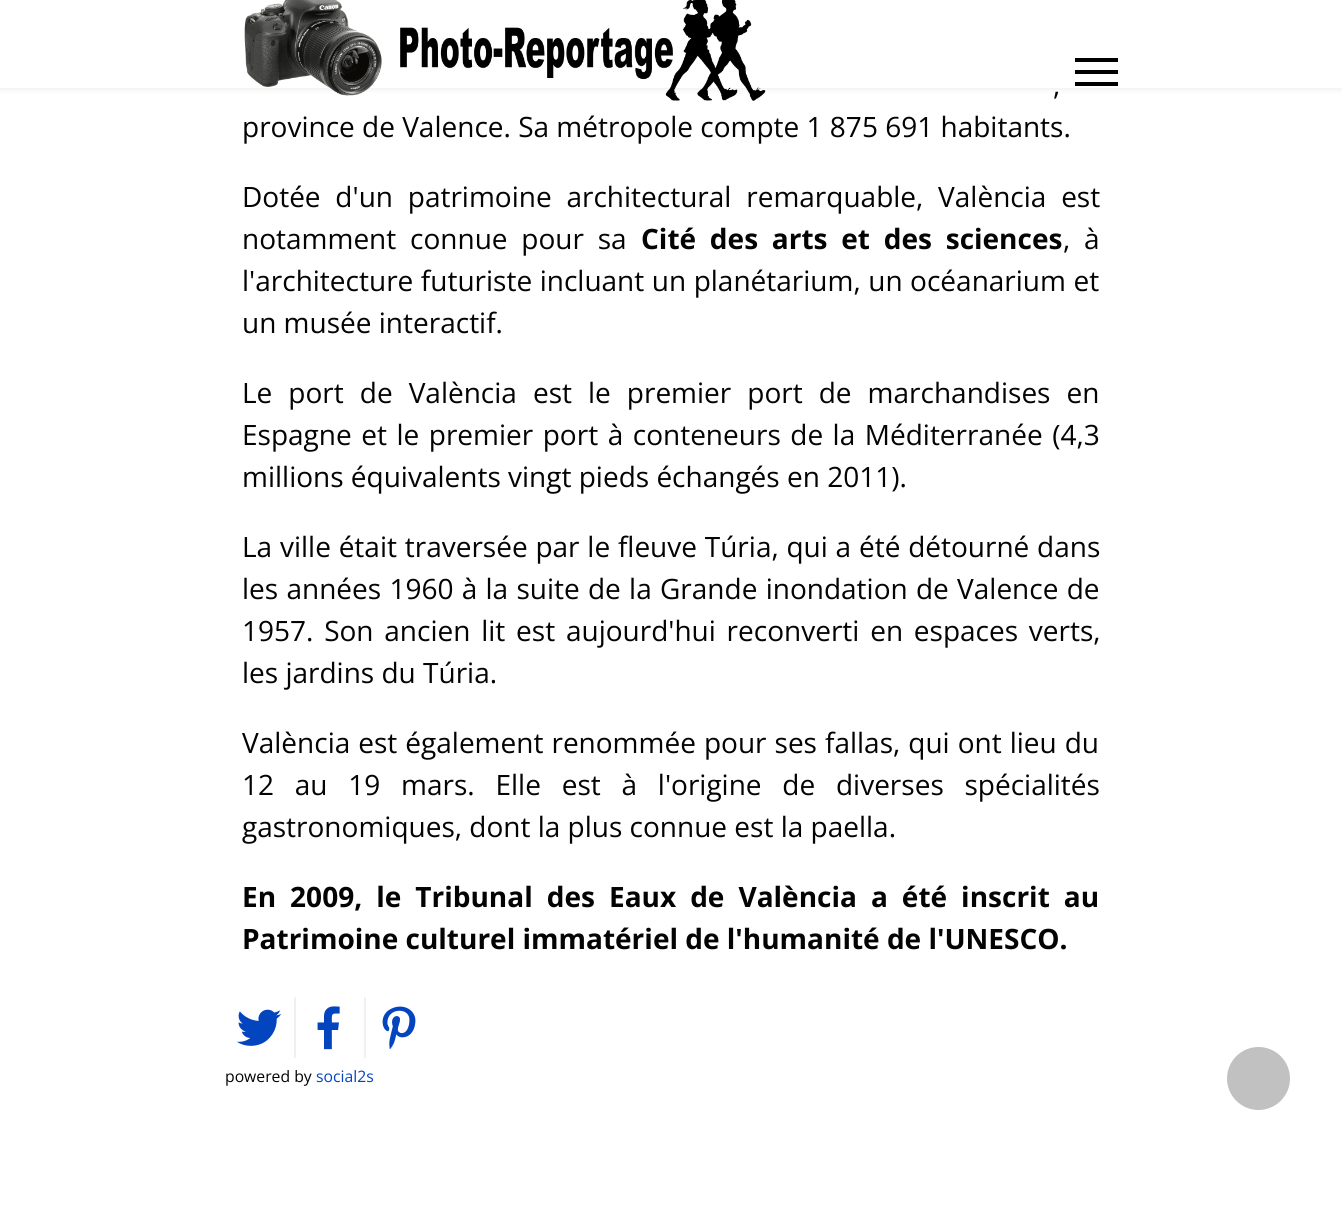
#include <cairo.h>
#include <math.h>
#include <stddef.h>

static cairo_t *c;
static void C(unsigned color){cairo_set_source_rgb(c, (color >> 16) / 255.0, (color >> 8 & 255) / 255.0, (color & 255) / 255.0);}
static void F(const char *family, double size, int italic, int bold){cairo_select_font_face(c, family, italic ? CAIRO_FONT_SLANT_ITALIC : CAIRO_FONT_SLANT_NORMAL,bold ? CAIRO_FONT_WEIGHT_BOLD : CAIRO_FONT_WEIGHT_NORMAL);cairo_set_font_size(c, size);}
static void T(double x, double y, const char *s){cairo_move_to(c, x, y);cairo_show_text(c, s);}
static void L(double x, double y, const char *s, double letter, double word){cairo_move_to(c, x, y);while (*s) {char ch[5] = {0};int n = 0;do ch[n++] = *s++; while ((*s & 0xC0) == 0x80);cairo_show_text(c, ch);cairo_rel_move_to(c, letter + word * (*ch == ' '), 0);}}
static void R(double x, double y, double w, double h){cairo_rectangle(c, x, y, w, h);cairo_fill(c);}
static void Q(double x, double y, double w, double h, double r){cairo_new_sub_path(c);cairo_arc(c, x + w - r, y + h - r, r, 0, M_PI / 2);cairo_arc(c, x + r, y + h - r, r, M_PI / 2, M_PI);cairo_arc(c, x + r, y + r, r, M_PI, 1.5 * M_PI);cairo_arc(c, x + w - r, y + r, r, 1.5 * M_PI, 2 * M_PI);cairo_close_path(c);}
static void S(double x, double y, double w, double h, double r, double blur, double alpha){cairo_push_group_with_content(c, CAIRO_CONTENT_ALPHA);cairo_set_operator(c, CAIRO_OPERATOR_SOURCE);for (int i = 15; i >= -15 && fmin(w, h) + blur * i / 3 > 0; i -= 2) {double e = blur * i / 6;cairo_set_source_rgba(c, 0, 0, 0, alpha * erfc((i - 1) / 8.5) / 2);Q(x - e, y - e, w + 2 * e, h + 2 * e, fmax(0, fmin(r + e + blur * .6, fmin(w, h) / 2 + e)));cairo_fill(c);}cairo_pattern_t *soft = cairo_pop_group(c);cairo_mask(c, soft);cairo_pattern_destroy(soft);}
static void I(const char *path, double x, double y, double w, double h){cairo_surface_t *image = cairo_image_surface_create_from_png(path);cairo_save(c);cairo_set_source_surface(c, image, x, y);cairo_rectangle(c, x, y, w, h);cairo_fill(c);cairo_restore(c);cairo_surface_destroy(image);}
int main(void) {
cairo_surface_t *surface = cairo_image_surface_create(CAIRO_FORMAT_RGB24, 1342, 1214);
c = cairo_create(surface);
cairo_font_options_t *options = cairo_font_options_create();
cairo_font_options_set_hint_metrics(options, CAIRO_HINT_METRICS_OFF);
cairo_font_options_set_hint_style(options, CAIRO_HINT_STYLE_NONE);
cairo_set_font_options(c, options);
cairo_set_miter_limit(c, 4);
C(0xffffff);
cairo_paint(c);
C(0x000000);
S(0,0,1342,88,0,3.5,.1);
C(0xffffff);
R(0,0,1342,88);
I("1.png",244,0,522,101);
C(0x000000);
R(1075,58,43,4);
R(1075,70,43,4);
R(1075,82,43,4);
F("Open Sans",28,0,0);
C(0x030303);
L(1053,95,",",0,9);
T(242,137,"province de Valence. Sa métropole compte 1 875 691 habitants.");
L(242,207,"Dotée d'un patrimoine architectural remarquable, València est",0,7.5);
L(242,249,"notamment connue pour sa",0,6.5);
F("Open Sans",28,0,1);
L(641,249,"Cité des arts et des sciences",0,6.5);
F("Open Sans",28,0,0);
L(1063,249,", à",0,6.5);
L(242,291,"l'architecture futuriste incluant un planétarium, un océanarium et",0,.25);
T(242,333,"un musée interactif.");
L(242,403,"Le port de València est le premier port de marchandises en",0,8.75);
L(242,445,"Espagne et le premier port à conteneurs de la Méditerranée (4,3",0,2.25);
T(242,487,"millions équivalents vingt pieds échangés en 2011).");
L(242,557,"La ville était traversée par le fleuve Túria, qui a été détourné dans",0,.5);
L(242,599,"les années 1960 à la suite de la Grande inondation de Valence de",0,1);
L(242,641,"1957. Son ancien lit est aujourd'hui reconverti en espaces verts,",0,3.5);
T(242,683,"les jardins du Túria.");
L(242,753,"València est également renommée pour ses fallas, qui ont lieu du",0,.75);
L(242,795,"12 au 19 mars. Elle est à l'origine de diverses spécialités",0,13.5);
T(242,837,"gastronomiques, dont la plus connue est la paella.");
F("Open Sans",28,0,1);
L(242,907,"En 2009, le Tribunal des Eaux de València a été inscrit au",0,6.75);
T(242,949,"Patrimoine culturel immatériel de l'humanité de l'UNESCO.");
I("2.png",237,1009,45,37);
C(0xf0f0f0);
cairo_new_path(c);
cairo_move_to(c,294,1059);
cairo_line_to(c,294,996);
cairo_line_to(c,296,998);
cairo_line_to(c,296,1057);
cairo_close_path(c);
cairo_fill(c);
I("3.png",317,1006,23,44);
cairo_new_path(c);
cairo_move_to(c,366,998);
cairo_line_to(c,364,996);
cairo_line_to(c,364,1059);
cairo_line_to(c,366,1057);
cairo_close_path(c);
cairo_fill(c);
I("4.png",382,1006,34,44);
F("Open Sans",15.75,0,0);
C(0x030303);
T(225,1082,"powered by");
C(0x0345bf);
T(316,1082,"social2s");
C(0xc1c1c1);
cairo_new_path(c);
cairo_arc(c,1258.5,1078.5,31.5,0,2 * M_PI);
cairo_fill(c);
cairo_surface_write_to_png(surface, "o.png");
cairo_font_options_destroy(options);
cairo_destroy(c);
cairo_surface_destroy(surface);
return 0;
}
